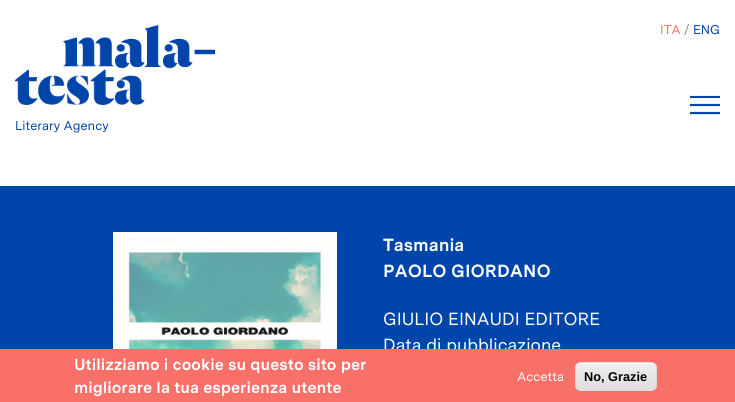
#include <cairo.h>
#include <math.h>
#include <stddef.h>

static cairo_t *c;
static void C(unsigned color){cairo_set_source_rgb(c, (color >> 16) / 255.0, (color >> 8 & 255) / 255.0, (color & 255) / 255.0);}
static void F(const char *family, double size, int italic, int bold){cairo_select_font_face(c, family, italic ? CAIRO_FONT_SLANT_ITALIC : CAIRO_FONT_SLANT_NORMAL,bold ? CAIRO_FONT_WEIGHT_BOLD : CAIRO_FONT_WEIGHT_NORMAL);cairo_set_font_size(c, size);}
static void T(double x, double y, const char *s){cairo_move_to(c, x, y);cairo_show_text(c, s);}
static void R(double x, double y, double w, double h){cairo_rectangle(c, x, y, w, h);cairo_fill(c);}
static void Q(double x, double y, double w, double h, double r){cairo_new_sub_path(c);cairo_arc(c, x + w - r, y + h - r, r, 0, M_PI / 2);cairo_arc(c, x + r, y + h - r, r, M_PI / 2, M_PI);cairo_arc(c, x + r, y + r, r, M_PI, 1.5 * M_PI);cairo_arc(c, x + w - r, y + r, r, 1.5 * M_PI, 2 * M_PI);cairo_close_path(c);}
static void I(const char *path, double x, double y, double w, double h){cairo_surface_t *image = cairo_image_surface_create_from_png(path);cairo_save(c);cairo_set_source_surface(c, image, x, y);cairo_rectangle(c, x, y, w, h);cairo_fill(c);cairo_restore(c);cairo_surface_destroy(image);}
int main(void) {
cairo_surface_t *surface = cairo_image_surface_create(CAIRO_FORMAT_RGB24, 735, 402);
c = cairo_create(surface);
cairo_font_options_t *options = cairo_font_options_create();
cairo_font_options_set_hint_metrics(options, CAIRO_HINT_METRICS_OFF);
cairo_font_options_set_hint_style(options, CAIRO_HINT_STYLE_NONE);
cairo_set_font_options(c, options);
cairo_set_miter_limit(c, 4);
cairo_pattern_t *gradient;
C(0xffffff);
cairo_paint(c);
F("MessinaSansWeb",12.75,0,0);
C(0xf87068);
T(660,34,"ITA");
C(0x808080);
T(684,34,"/");
C(0x0046aa);
T(693,34,"ENG");
I("1.png",690,95,30,20);
I("2.png",15,25,200,80);
T(15,130,"Literary Agency");
R(0,186,735,163);
I("3.png",113,232,224,117);
F("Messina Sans",17.6,0,1);
C(0xffffff);
T(383,251,"Tasmania");
T(383,277,"PAOLO GIORDANO");
F("MessinaSansWeb",17.6,0,0);
T(383,325,"GIULIO EINAUDI EDITORE");
T(383,351,"Data di pubblicazione");
C(0xf87068);
R(0,349,735,53);
F("Messina Sans",16,0,1);
C(0xffffff);
T(74,370,"Utilizziamo i cookie su questo sito per");
T(74,393,"migliorare la tua esperienza utente");
F("MessinaSansWeb",12.75,0,0);
T(517,381,"Accetta");
cairo_save(c);
Q(575,362,82,29,6);
cairo_clip(c);
gradient = cairo_pattern_create_linear(616,363,616,390);
cairo_pattern_add_color_stop_rgba(gradient,.05,0.929,0.929,0.929,1);
cairo_pattern_add_color_stop_rgba(gradient,1,0.875,0.875,0.875,1);
cairo_set_source(c,gradient);
cairo_pattern_destroy(gradient);
R(575,363,82,27);
cairo_restore(c);
cairo_new_path(c);
cairo_move_to(c,581,364);
cairo_line_to(c,651,364);
cairo_curve_to(c,654,364,656,366,656,369);
cairo_curve_to(c,656,360,645,363,639,363);
cairo_line_to(c,593,363);
cairo_curve_to(c,587,363,576,360,576,369);
cairo_curve_to(c,576,366,578,364,581,364);
cairo_close_path(c);
cairo_fill(c);
Q(575.5,362.5,81,28,5.5);
C(0xdcdcdc);
cairo_set_line_width(c,1);
cairo_stroke(c);
F("Liberation Sans",12.75,0,1);
C(0x000000);
T(584,381,"No, Grazie");
cairo_surface_write_to_png(surface, "o.png");
cairo_font_options_destroy(options);
cairo_destroy(c);
cairo_surface_destroy(surface);
return 0;
}
